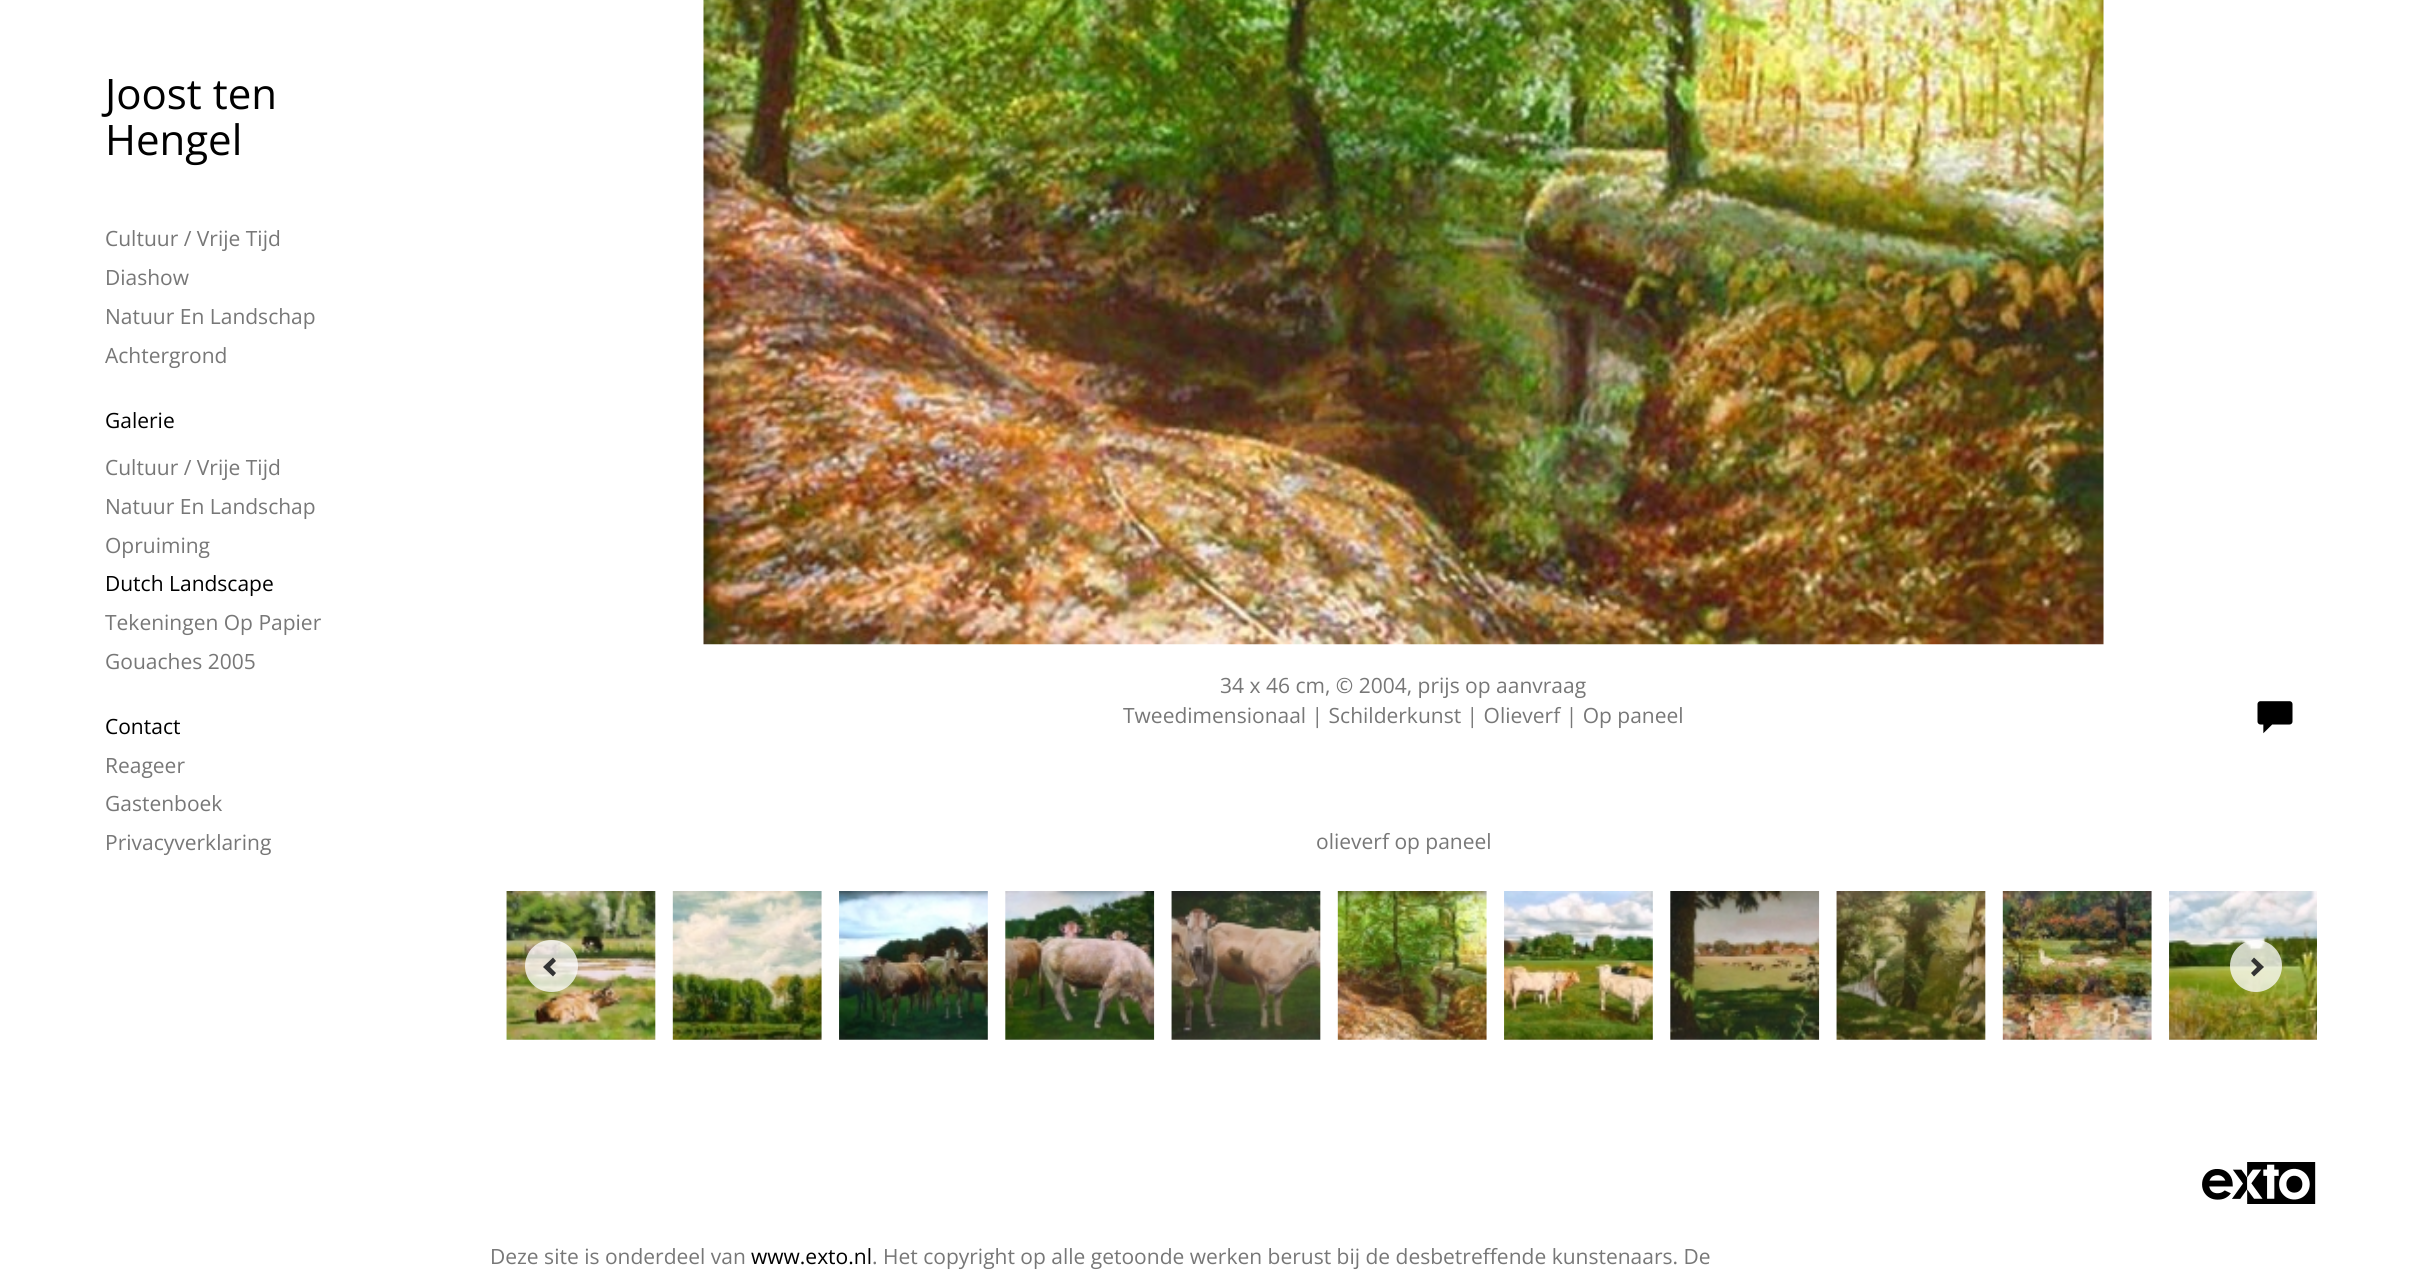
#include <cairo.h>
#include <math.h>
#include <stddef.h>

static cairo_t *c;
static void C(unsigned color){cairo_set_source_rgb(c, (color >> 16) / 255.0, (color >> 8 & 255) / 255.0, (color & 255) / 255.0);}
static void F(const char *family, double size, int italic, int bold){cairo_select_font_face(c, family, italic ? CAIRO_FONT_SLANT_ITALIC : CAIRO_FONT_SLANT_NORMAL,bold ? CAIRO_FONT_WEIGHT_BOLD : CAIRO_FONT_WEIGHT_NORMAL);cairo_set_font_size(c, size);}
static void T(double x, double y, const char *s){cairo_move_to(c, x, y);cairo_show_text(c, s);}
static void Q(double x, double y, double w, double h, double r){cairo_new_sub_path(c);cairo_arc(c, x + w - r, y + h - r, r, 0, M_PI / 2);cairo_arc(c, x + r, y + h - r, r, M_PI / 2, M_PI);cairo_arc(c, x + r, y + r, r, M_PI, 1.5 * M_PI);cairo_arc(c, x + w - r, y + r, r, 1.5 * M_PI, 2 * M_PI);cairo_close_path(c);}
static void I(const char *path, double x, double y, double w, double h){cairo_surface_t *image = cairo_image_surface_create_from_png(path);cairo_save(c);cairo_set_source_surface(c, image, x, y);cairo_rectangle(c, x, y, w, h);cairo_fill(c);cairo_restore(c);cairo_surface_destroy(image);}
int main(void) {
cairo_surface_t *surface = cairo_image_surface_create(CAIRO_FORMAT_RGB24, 2422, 1281);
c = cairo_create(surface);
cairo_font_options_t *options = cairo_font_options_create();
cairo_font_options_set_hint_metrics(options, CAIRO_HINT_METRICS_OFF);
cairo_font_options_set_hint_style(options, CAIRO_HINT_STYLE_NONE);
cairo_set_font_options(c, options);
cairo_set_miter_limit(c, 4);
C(0xffffff);
cairo_paint(c);
F("Open Sans",42,0,0);
C(0x000000);
T(105,109,"Joost ten");
T(105,155,"Hengel");
F("Open Sans",21,0,0);
C(0x777777);
T(105,246,"Cultuur / Vrije Tijd");
T(105,285,"Diashow");
T(105,324,"Natuur En Landschap");
T(105,363,"Achtergrond");
C(0x000000);
T(105,428,"Galerie");
C(0x777777);
T(105,475,"Cultuur / Vrije Tijd");
T(105,514,"Natuur En Landschap");
T(105,553,"Opruiming");
C(0x000000);
T(105,591,"Dutch Landscape");
C(0x777777);
T(105,630,"Tekeningen Op Papier");
T(105,669,"Gouaches 2005");
C(0x000000);
T(105,734,"Contact");
C(0x777777);
T(105,773,"Reageer");
T(105,811,"Gastenboek");
T(105,850,"Privacyverklaring");
I("1.png",703,0,1401,645);
T(1220,693,"34 x 46 cm, © 2004, prijs op aanvraag");
T(1123,723,"Tweedimensionaal | Schilderkunst | Olieverf | Op paneel");
I("2.png",2257,701,36,33);
T(1316,849,"olieverf op paneel");
I("3.png",506,891,150,149);
I("4.png",672,891,150,149);
I("5.png",839,891,149,149);
I("6.png",1005,891,150,149);
I("7.png",1171,891,150,149);
I("8.png",1337,891,150,149);
I("9.png",1504,891,149,149);
I("10.png",1670,891,150,149);
I("11.png",1836,891,150,149);
I("12.png",2002,891,150,149);
I("13.png",2169,891,148,149);
cairo_set_source_rgba(c,1,1,1,0.75);
Q(525,940,53,52,26);
cairo_fill(c);
C(0x333333);
cairo_new_path(c);
cairo_move_to(c,556,961);
cairo_line_to(c,550,967);
cairo_line_to(c,556,973);
cairo_line_to(c,553,976.5);
cairo_line_to(c,543,967);
cairo_line_to(c,553,957.5);
cairo_close_path(c);
cairo_fill(c);
cairo_set_source_rgba(c,1,1,1,0.75);
cairo_arc(c,2256,966,26,0,2 * M_PI);
cairo_fill(c);
C(0x333333);
cairo_new_path(c);
cairo_move_to(c,2264,967);
cairo_line_to(c,2254,976.5);
cairo_line_to(c,2251,973);
cairo_line_to(c,2257,967);
cairo_line_to(c,2251,961);
cairo_line_to(c,2254,957.5);
cairo_close_path(c);
cairo_fill(c);
I("14.png",2202,1162,114,42);
C(0x777777);
T(490,1264,"Deze site is onderdeel van");
C(0x000000);
T(751,1264,"www.exto.nl");
C(0x777777);
T(872,1264,". Het copyright op alle getoonde werken berust bij de desbetreffende kunstenaars. De");
cairo_surface_write_to_png(surface, "o.png");
cairo_font_options_destroy(options);
cairo_destroy(c);
cairo_surface_destroy(surface);
return 0;
}
